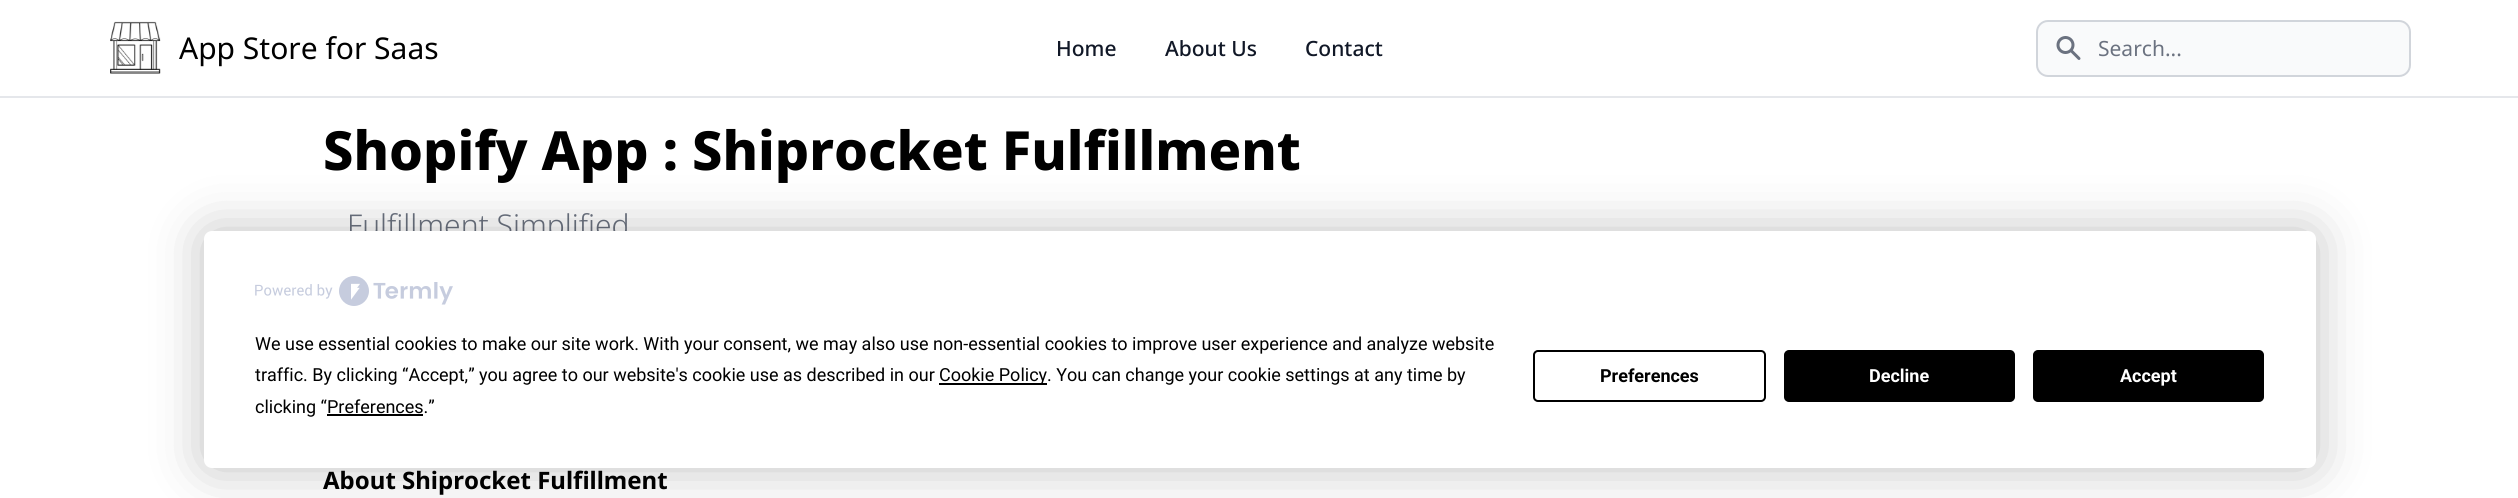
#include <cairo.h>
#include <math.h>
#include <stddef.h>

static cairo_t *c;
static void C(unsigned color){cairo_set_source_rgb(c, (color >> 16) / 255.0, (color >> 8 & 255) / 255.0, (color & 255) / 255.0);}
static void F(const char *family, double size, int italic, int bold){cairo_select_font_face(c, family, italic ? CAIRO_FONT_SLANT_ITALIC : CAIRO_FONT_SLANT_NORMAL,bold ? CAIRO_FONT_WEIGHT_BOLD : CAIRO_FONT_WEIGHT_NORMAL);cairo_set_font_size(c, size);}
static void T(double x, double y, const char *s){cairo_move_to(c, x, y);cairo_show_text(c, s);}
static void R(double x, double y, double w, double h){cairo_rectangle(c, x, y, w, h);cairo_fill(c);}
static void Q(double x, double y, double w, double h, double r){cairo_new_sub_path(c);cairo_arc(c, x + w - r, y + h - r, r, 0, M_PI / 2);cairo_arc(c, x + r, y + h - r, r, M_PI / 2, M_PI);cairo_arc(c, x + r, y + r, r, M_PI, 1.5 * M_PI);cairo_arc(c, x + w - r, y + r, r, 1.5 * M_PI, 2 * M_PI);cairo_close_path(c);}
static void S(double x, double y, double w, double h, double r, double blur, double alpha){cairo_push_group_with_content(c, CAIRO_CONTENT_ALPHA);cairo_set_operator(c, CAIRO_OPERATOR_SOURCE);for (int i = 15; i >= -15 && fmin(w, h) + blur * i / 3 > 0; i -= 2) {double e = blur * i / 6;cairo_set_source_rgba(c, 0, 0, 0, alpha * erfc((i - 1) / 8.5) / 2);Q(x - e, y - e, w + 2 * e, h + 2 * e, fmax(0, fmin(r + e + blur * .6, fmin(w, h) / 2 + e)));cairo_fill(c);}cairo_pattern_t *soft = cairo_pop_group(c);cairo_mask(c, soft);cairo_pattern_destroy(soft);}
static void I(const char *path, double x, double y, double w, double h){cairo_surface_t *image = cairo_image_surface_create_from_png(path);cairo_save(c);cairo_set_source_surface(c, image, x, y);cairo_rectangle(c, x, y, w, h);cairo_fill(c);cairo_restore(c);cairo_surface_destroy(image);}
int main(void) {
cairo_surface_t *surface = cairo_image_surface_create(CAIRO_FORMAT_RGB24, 2518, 498);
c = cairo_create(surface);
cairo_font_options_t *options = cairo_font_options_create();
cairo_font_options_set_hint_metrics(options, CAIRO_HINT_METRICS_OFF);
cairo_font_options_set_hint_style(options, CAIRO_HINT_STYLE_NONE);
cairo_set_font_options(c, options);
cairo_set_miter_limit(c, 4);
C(0xffffff);
cairo_paint(c);
C(0xe5e7eb);
R(0,96,2518,2);
I("1.png",110,21,51,53);
F("Noto Sans",30,0,0);
C(0x000000);
T(179,59,"App Store for Saas");
F("Noto Sans Medium",21,0,0);
C(0x111827);
T(1056,56,"Home");
T(1165,56,"About Us");
T(1305,56,"Contact");
C(0xf9fafb);
Q(2037,21,373,55,11);
cairo_fill_preserve(c);
C(0xd1d5db);
cairo_stroke(c);
I("2.png",2056,36,25,24);
F("Noto Sans",21,0,0);
C(0x6b7280);
T(2098,56,"Search...");
F("Noto Sans ExtraBold",54,0,0);
C(0x000000);
T(323,170,"Shopify App : Shiprocket Fulfillment");
F("Noto Sans Light",30,0,0);
C(0x6b7280);
T(347,236,"Fulfillment Simplified");
F("Noto Sans",24,0,1);
C(0x000000);
T(323,489,"About Shiprocket Fulfillment");
C(0x000000);
S(204,231,2112,237,8,26,.25);
C(0xffffff);
Q(204,231,2112,237,8);
cairo_fill(c);
I("3.png",255,276,198,30);
F("Roboto",18,0,0);
C(0x000000);
T(255,350,"We use essential cookies to make our site work. With your consent, we may also use non-essential cookies to improve user experience and analyze website");
T(255,381,"traffic. By clicking “Accept,” you agree to our website's cookie use as described in our");
R(939,383,108,2);
T(939,381,"Cookie Policy. You can change your cookie settings at any time by");
T(255,413,"clicking “Preferences.”");
R(327,414,96,2);
Q(1534,351,231,50,4);
cairo_stroke(c);
F("Roboto",18,0,1);
T(1600,382,"Preferences");
Q(1785,351,229,50,4);
cairo_fill_preserve(c);
cairo_stroke(c);
C(0xffffff);
T(1869,382,"Decline");
C(0x000000);
Q(2034,351,229,50,4);
cairo_fill_preserve(c);
cairo_stroke(c);
C(0xffffff);
T(2120,382,"Accept");
cairo_surface_write_to_png(surface, "o.png");
cairo_font_options_destroy(options);
cairo_destroy(c);
cairo_surface_destroy(surface);
return 0;
}
